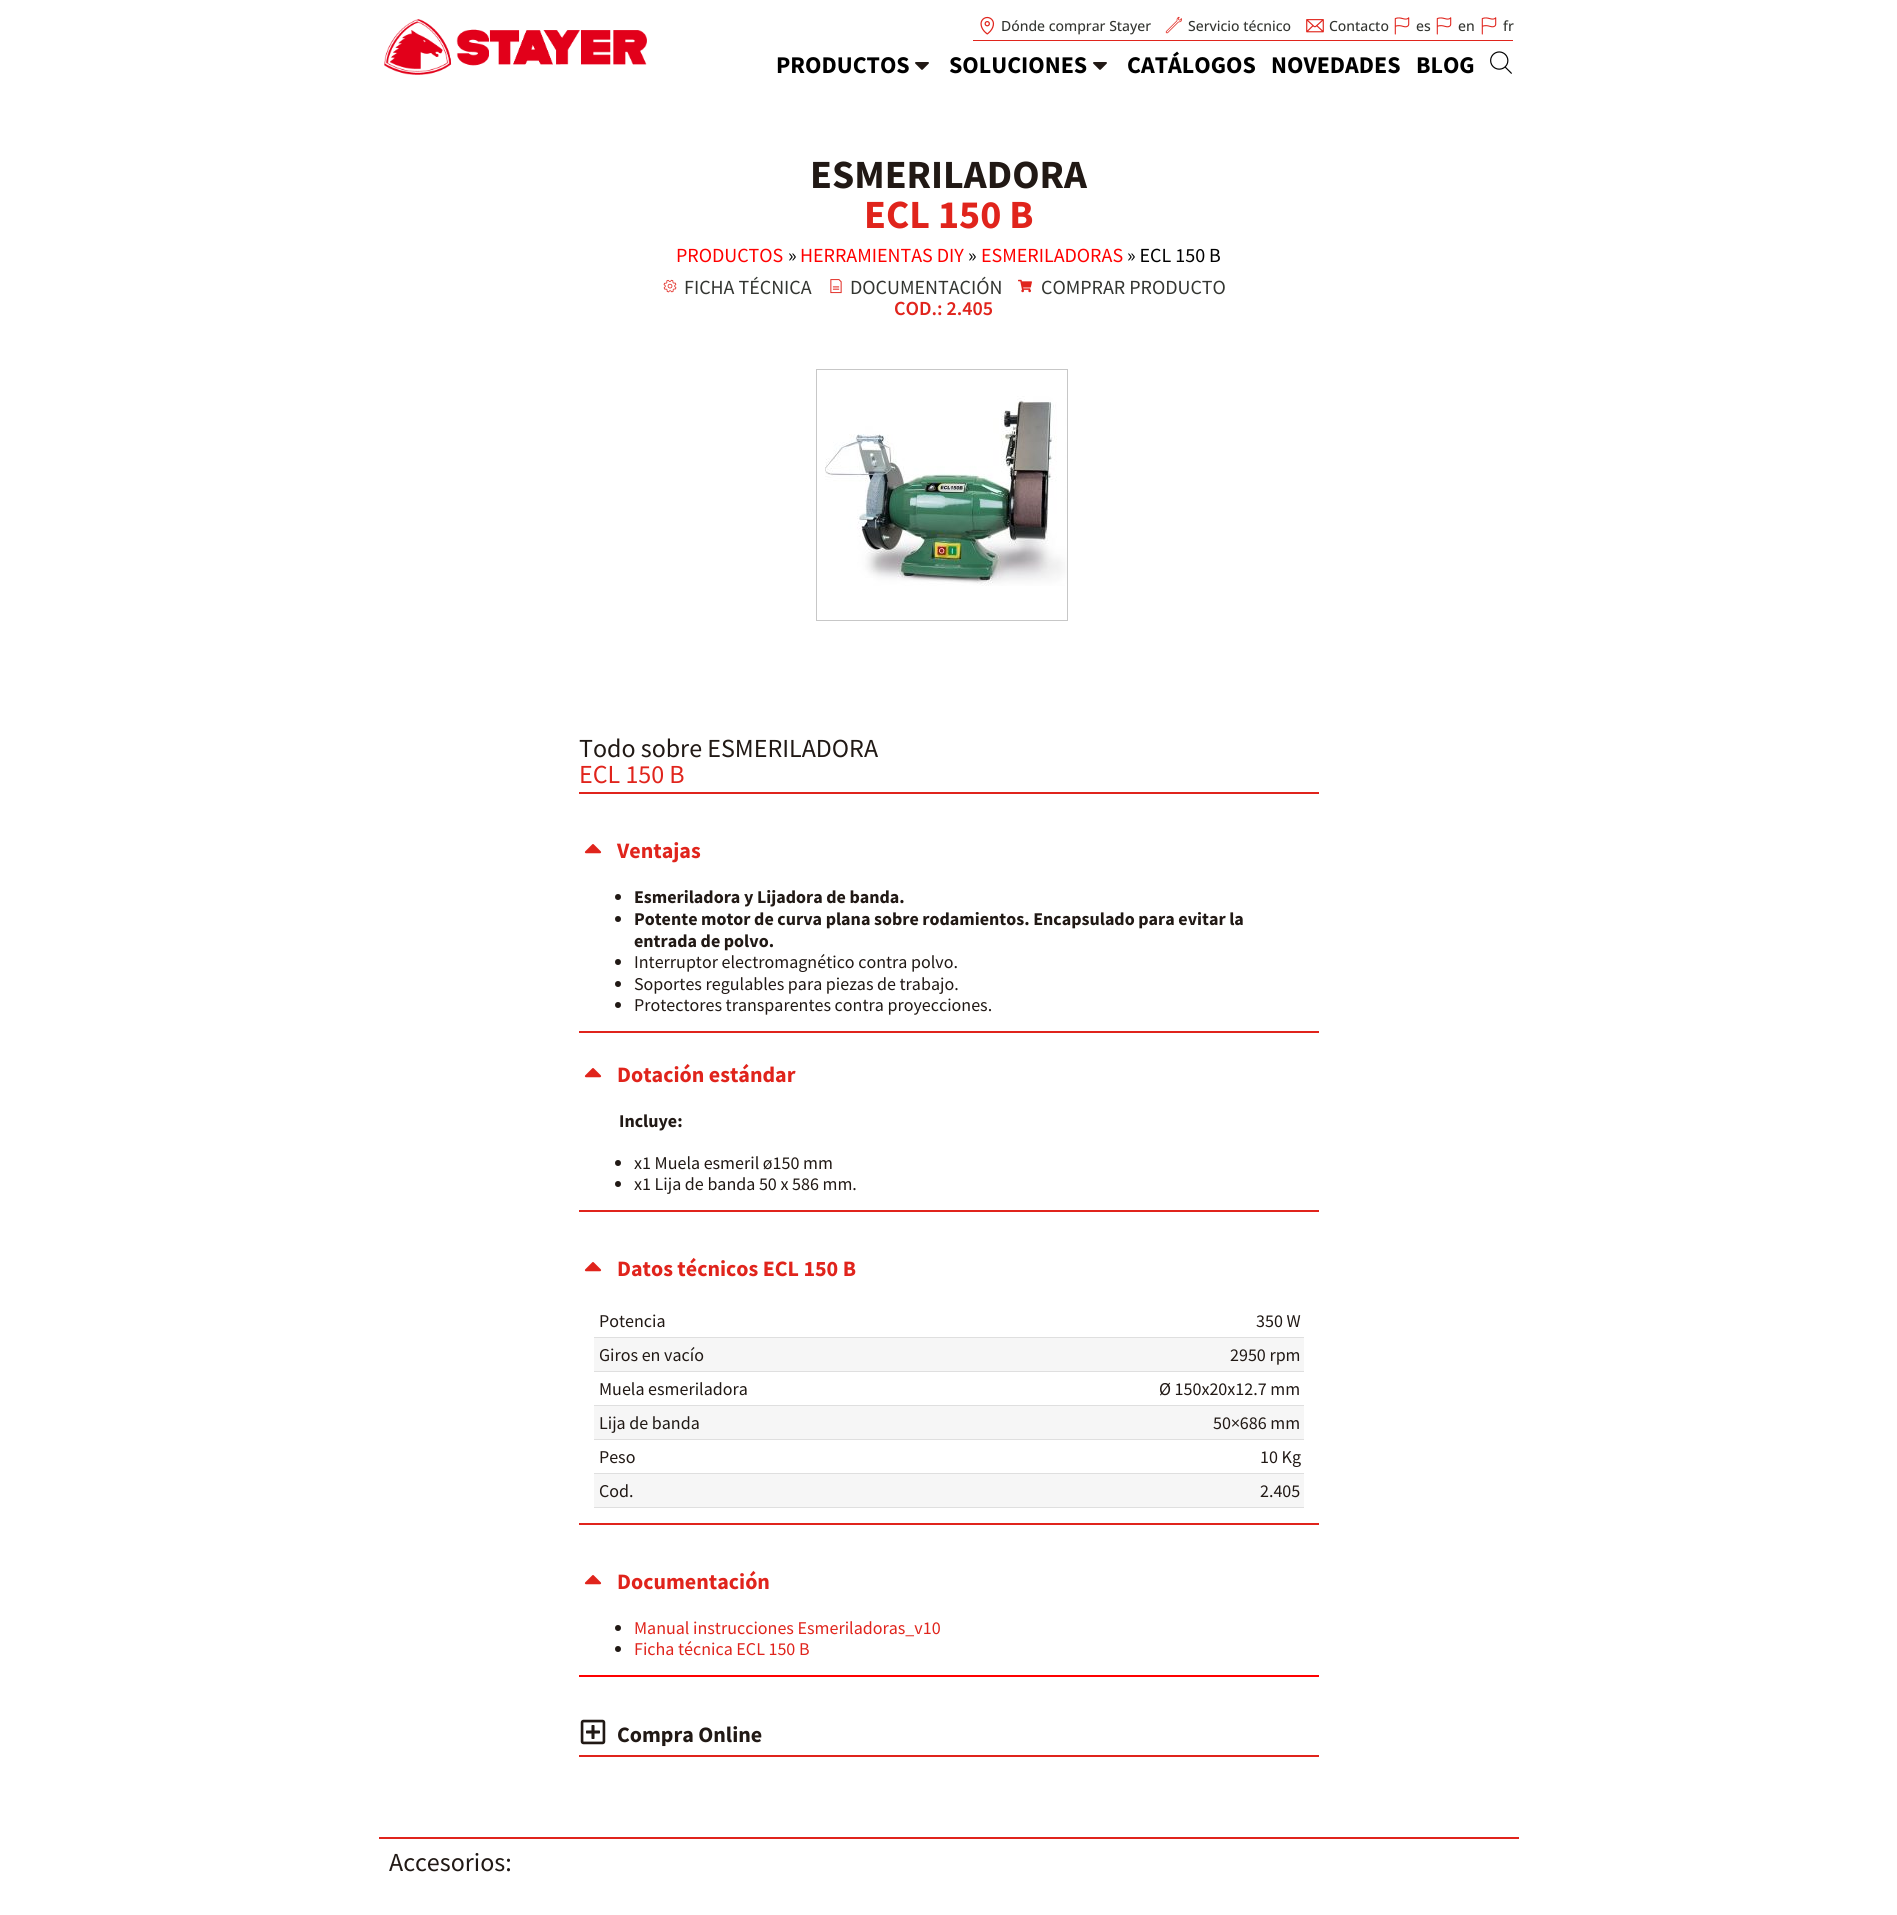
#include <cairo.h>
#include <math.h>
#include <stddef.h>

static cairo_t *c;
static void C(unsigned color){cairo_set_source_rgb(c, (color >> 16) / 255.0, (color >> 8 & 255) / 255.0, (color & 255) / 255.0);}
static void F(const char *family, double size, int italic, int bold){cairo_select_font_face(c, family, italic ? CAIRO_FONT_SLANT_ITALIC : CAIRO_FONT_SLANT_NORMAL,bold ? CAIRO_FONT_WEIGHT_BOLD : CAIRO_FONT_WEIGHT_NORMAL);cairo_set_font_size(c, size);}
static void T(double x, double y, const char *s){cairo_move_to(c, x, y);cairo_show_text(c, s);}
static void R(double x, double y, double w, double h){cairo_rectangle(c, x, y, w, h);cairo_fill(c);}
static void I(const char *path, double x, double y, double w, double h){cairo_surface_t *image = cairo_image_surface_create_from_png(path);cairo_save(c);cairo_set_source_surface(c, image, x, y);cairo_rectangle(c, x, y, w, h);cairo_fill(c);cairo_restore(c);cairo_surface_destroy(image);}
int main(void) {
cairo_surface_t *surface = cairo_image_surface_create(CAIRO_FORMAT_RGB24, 1897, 1915);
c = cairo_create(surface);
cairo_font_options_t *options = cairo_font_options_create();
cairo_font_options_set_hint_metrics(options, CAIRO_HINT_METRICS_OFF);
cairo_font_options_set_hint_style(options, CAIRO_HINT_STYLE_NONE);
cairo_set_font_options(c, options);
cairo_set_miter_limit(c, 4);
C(0xffffff);
cairo_paint(c);
I("1.png",384,19,263,56);
C(0xe0241c);
R(973,40,540,1);
I("2.png",980,16,15,19);
F("Open Sans Medium",14,0,0);
C(0x333531);
T(1001,31,"Dónde comprar Stayer");
I("3.png",1165,16,17,18);
T(1188,31,"Servicio técnico");
I("4.png",1306,19,18,14);
T(1329,31,"Contacto");
I("5.png",1394,17,16,18);
T(1416,31,"es");
I("5.png",1436,17,16,18);
T(1458,31,"en");
I("5.png",1481,17,16,18);
T(1503,31,"fr");
F("Source Sans Pro",24,0,1);
C(0x000000);
T(776,73,"PRODUCTOS");
I("6.png",915,62,14,8);
T(949,73,"SOLUCIONES");
I("6.png",1093,62,14,8);
T(1127,73,"CATÁLOGOS");
T(1271,73,"NOVEDADES");
T(1416,73,"BLOG");
I("7.png",1490,51,22,23);
F("Source Sans Pro",40,0,1);
C(0x211915);
T(810,188,"ESMERILADORA");
C(0xe0241c);
T(864,228,"ECL 150 B");
F("Source Sans Pro",20,0,0);
C(0xff0000);
T(676,262,"PRODUCTOS");
C(0x000000);
T(788,262,"»");
C(0xff0000);
T(800,262,"HERRAMIENTAS DIY");
C(0x000000);
T(968,262,"»");
C(0xff0000);
T(981,262,"ESMERILADORAS");
C(0x000000);
T(1127,262,"» ECL 150 B");
I("8.png",663,279,14,14);
C(0x333531);
T(684,294,"FICHA TÉCNICA");
I("9.png",830,279,12,15);
T(850,294,"DOCUMENTACIÓN");
I("10.png",1018,279,14,14);
T(1041,294,"COMPRAR PRODUCTO");
F("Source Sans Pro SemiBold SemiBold",20,0,0);
C(0xe0241c);
T(894,315,"COD.: 2.405");
cairo_rectangle(c,816.5,369.5,251,251);
C(0xc7c7c7);
cairo_set_line_width(c,1);
cairo_stroke(c);
I("11.png",825,396,242,190);
C(0xe0241c);
R(579,792,740,2);
F("Source Sans Pro",26,0,0);
C(0x211915);
T(579,757,"Todo sobre ESMERILADORA");
C(0xe0241c);
T(579,783,"ECL 150 B");
I("12.png",584,844,18,10);
F("Source Sans Pro",22,0,1);
T(617,858,"Ventajas");
R(579,1031,740,2);
C(0x211915);
cairo_new_path(c);
cairo_arc(c,618,897,3,0,2 * M_PI);
cairo_fill(c);
F("Source Sans Pro",18,0,1);
T(634,903,"Esmeriladora y Lijadora de banda.");
cairo_new_path(c);
cairo_arc(c,618,919,3,0,2 * M_PI);
cairo_fill(c);
T(634,925,"Potente motor de curva plana sobre rodamientos. Encapsulado para evitar la");
T(634,947,"entrada de polvo.");
cairo_new_path(c);
cairo_arc(c,618,962,3,0,2 * M_PI);
cairo_fill(c);
F("Source Sans Pro",18,0,0);
T(634,968,"Interruptor electromagnético contra polvo.");
cairo_new_path(c);
cairo_arc(c,618,984,3,0,2 * M_PI);
cairo_fill(c);
T(634,990,"Soportes regulables para piezas de trabajo.");
cairo_new_path(c);
cairo_arc(c,618,1005,3,0,2 * M_PI);
cairo_fill(c);
T(634,1011,"Protectores transparentes contra proyecciones.");
I("12.png",584,1068,18,10);
F("Source Sans Pro",22,0,1);
C(0xe0241c);
T(617,1082,"Dotación estándar");
R(579,1210,740,2);
F("Source Sans Pro",18,0,1);
C(0x211915);
T(619,1127,"Incluye:");
cairo_new_path(c);
cairo_arc(c,618,1163,3,0,2 * M_PI);
cairo_fill(c);
F("Source Sans Pro",18,0,0);
T(634,1169,"x1 Muela esmeril ø150 mm");
cairo_new_path(c);
cairo_arc(c,618,1184,3,0,2 * M_PI);
cairo_fill(c);
T(634,1190,"x1 Lija de banda 50 x 586 mm.");
I("12.png",584,1262,18,10);
F("Source Sans Pro",22,0,1);
C(0xe0241c);
T(617,1276,"Datos técnicos ECL 150 B");
R(579,1523,740,2);
C(0xdfdfdf);
R(594,1337,710,1);
F("Source Sans Pro",18,0,0);
C(0x211915);
T(599,1327,"Potencia");
T(1256,1327,"350 W");
C(0xf6f6f6);
R(594,1338,710,33);
C(0xdfdfdf);
R(594,1371,710,1);
C(0x211915);
T(599,1361,"Giros en vacío");
T(1230,1361,"2950 rpm");
C(0xdfdfdf);
R(594,1405,710,1);
C(0x211915);
T(599,1395,"Muela esmeriladora");
T(1159,1395,"Ø 150x20x12.7 mm");
C(0xf6f6f6);
R(594,1406,710,33);
C(0xdfdfdf);
R(594,1439,710,1);
C(0x211915);
T(599,1429,"Lija de banda");
T(1213,1429,"50×686 mm");
C(0xdfdfdf);
R(594,1473,710,1);
C(0x211915);
T(599,1463,"Peso");
T(1260,1463,"10 Kg");
C(0xf6f6f6);
R(594,1474,710,33);
C(0xdfdfdf);
R(594,1507,710,1);
C(0x211915);
T(599,1497,"Cod.");
T(1260,1497,"2.405");
I("12.png",584,1575,18,10);
F("Source Sans Pro",22,0,1);
C(0xe0241c);
T(617,1589,"Documentación");
C(0xff0000);
R(579,1675,740,2);
C(0x211915);
cairo_new_path(c);
cairo_arc(c,618,1628,3,0,2 * M_PI);
cairo_fill(c);
F("Source Sans Pro",18,0,0);
C(0xe0241c);
T(634,1634,"Manual instrucciones Esmeriladoras_v10");
C(0x211915);
cairo_new_path(c);
cairo_arc(c,618,1649,3,0,2 * M_PI);
cairo_fill(c);
C(0xe0241c);
T(634,1655,"Ficha técnica ECL 150 B");
R(579,1755,740,2);
I("13.png",580,1719,26,26);
F("Source Sans Pro",22,0,1);
C(0x211915);
T(617,1742,"Compra Online");
C(0xe0241c);
R(379,1837,1140,2);
F("Source Sans Pro",26,0,0);
C(0x211915);
T(389,1871,"Accesorios:");
cairo_surface_write_to_png(surface, "o.png");
cairo_font_options_destroy(options);
cairo_destroy(c);
cairo_surface_destroy(surface);
return 0;
}
